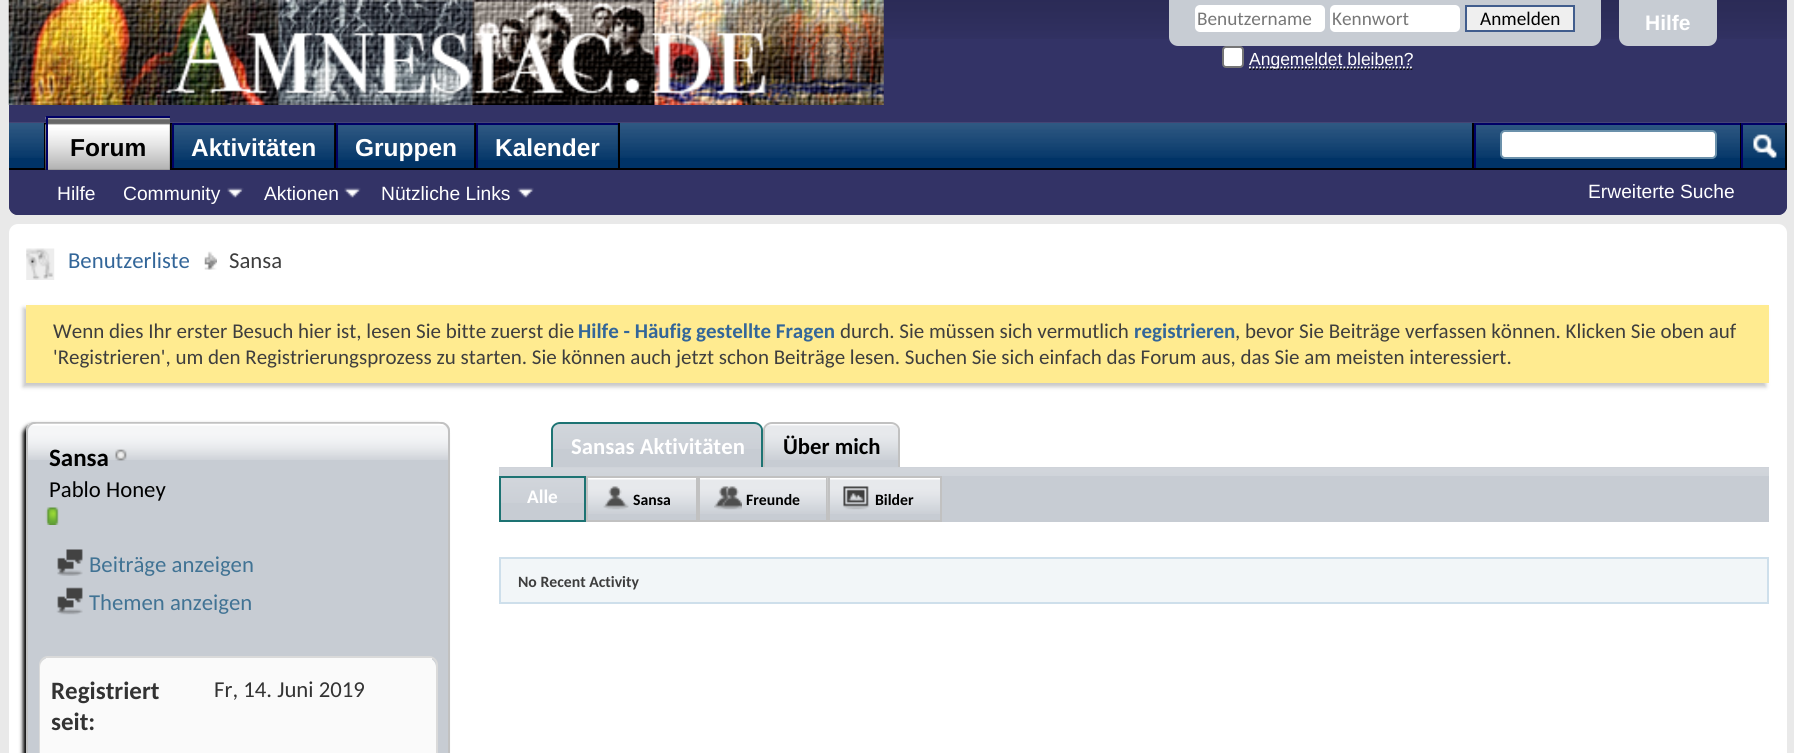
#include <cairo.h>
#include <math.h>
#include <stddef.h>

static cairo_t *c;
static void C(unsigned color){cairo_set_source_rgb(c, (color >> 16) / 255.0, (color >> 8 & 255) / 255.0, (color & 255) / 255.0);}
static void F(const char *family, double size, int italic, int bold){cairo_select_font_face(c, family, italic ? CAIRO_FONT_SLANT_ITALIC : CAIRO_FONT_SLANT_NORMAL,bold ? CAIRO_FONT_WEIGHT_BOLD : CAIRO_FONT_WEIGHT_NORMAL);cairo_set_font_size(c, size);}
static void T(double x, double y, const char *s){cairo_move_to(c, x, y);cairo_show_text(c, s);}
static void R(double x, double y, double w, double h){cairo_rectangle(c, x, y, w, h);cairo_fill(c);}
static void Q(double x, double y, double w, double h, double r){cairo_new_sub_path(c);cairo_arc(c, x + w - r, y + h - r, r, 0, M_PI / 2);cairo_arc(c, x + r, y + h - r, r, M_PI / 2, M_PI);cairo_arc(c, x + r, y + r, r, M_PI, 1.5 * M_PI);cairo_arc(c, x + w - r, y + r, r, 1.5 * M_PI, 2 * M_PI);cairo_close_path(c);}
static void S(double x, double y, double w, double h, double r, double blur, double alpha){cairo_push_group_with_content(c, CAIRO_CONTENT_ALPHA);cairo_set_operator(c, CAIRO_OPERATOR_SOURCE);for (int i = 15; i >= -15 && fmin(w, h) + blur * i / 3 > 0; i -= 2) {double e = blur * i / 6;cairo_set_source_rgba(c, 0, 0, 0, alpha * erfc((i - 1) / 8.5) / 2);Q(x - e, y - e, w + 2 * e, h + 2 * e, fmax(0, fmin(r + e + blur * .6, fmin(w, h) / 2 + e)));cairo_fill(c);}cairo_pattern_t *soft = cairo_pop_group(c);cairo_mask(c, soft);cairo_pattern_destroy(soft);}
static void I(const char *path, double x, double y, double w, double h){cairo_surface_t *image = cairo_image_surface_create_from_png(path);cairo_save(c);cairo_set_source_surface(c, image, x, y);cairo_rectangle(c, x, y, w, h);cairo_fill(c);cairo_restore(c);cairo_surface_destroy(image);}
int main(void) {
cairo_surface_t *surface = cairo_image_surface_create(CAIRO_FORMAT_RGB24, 1794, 753);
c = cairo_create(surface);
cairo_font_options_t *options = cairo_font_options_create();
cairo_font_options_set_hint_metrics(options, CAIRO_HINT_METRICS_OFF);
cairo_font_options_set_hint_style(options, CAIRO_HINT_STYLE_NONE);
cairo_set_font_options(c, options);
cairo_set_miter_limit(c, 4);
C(0xe9e9e9);
cairo_paint(c);
C(0x333366);
cairo_new_path(c);
cairo_move_to(c,9,0);
cairo_line_to(c,1787,0);
cairo_line_to(c,1787,206);
cairo_curve_to(c,1787,211,1783,215,1778,215);
cairo_line_to(c,18,215);
cairo_curve_to(c,13,215,9,211,9,206);
cairo_close_path(c);
cairo_fill(c);
I("1.png",883,0,904,39);
I("2.png",8,0,876,105);
C(0xc7ccd3);
cairo_new_path(c);
cairo_move_to(c,1169,0);
cairo_line_to(c,1601,0);
cairo_line_to(c,1601,37);
cairo_curve_to(c,1601,42,1597,46,1592,46);
cairo_line_to(c,1178,46);
cairo_curve_to(c,1173,46,1169,42,1169,37);
cairo_close_path(c);
cairo_fill(c);
C(0xffffff);
Q(1195,5,130,27,5);
cairo_fill(c);
F("Carlito",19.25,0,0);
C(0x777777);
T(1197,25,"Benutzername");
C(0xffffff);
Q(1330,5,130,27,5);
cairo_fill(c);
C(0x777777);
T(1332,25,"Kennwort");
C(0xefefef);
cairo_rectangle(c,1466,6,108,25);
cairo_fill_preserve(c);
C(0x415d8d);
cairo_stroke(c);
C(0x000000);
T(1480,25,"Anmelden");
C(0xffffff);
Q(1223,47,20,20,3);
cairo_fill_preserve(c);
C(0x767676);
cairo_stroke(c);
cairo_new_path(c);
cairo_move_to(c,1249.5,69);
cairo_line_to(c,1414,69);
C(0x000000);
cairo_set_line_width(c,1.8);
cairo_set_dash(c,(double[]){1.75,1.75},2,0);
cairo_stroke(c);
cairo_new_path(c);
cairo_move_to(c,1249,67.5);
cairo_line_to(c,1413.5,67.5);
C(0xffffff);
cairo_stroke(c);
F("Liberation Sans",17.5,0,0);
T(1249,65,"Angemeldet bleiben?");
C(0xc7ccd3);
cairo_new_path(c);
cairo_move_to(c,1619,0);
cairo_line_to(c,1717,0);
cairo_line_to(c,1717,37);
cairo_curve_to(c,1717,42,1713,46,1708,46);
cairo_line_to(c,1628,46);
cairo_curve_to(c,1623,46,1619,42,1619,37);
cairo_close_path(c);
cairo_fill(c);
F("Liberation Sans",21,0,1);
C(0xffffff);
T(1645,30,"Hilfe");
C(0x333366);
cairo_new_path(c);
cairo_move_to(c,9,123);
cairo_line_to(c,1787,123);
cairo_line_to(c,1787,206);
cairo_curve_to(c,1787,211,1783,215,1778,215);
cairo_line_to(c,18,215);
cairo_curve_to(c,13,215,9,211,9,206);
cairo_close_path(c);
cairo_fill(c);
C(0x003366);
R(9,123,1776,45);
I("3.png",9,122,1778,36);
C(0x000000);
R(170,123,2,45);
R(44,123,2,45);
R(334,123,2,47);
C(0x003366);
R(174,125,160,33);
I("5.png",171,124,164,36);
C(0x000066);
R(172,123,162,2);
R(172,123,2,47);
C(0x000000);
R(474,123,2,47);
C(0x003366);
R(338,125,136,33);
I("6.png",338,124,137,36);
C(0x000066);
R(336,123,138,2);
R(336,123,2,47);
C(0x000000);
R(618,123,2,47);
C(0x000066);
R(476,123,142,2);
R(476,123,2,47);
C(0x000000);
R(9,168,1778,2);
C(0x666666);
R(48,118,122,52);
I("4.png",45,117,125,53);
C(0x000066);
R(46,116,124,2);
R(46,116,2,54);
F("Liberation Sans",24.5,0,1);
C(0x000000);
T(70,156,"Forum");
C(0xffffff);
T(191,156,"Aktivitäten");
T(355,156,"Gruppen");
C(0x003366);
R(478,125,140,33);
I("7.png",478,125,140,35);
C(0xffffff);
T(495,156,"Kalender");
F("Liberation Sans",19.25,0,0);
T(57,200,"Hilfe");
T(123,200,"Community");
I("8.png",227,187,17,11);
T(264,200,"Aktionen");
I("9.png",344,187,17,11);
T(381,200,"Nützliche Links");
I("10.png",517,187,17,11);
C(0x000000);
R(1472,123,2,45);
C(0x000066);
R(1474,123,266,2);
R(1474,123,2,45);
C(0xffffff);
Q(1501,131,215,27,4);
cairo_fill_preserve(c);
C(0x6b91ab);
cairo_set_line_width(c,2);
cairo_set_dash(c,NULL,0,0);
cairo_stroke(c);
C(0x000000);
R(1785,123,2,45);
R(1740,123,1,45);
C(0x000066);
R(1741,123,44,2);
R(1741,123,2,45);
I("11.png",1753,134,24,26);
C(0xffffff);
T(1588,198,"Erweiterte Suche");
Q(9,224,1778,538,9);
cairo_fill(c);
I("12.png",26,248,29,32);
I("13.png",204,251,13,19);
F("Carlito",22.75,0,0);
C(0x336699);
T(68,268,"Benutzerliste");
C(0x3e3e3e);
T(229,268,"Sansa");
C(0xc8c8c8);
S(23,308,1743,79,0,2,1);
C(0xffeb90);
R(26,305,1743,78);
F("Carlito",21,0,0);
C(0x3e3e3e);
T(53,338,"Wenn dies Ihr erster Besuch hier ist, lesen Sie bitte zuerst die");
F("Carlito",21,0,1);
C(0x336699);
T(578,338,"Hilfe - Häufig gestellte Fragen");
F("Carlito",21,0,0);
C(0x3e3e3e);
T(840,338,"durch. Sie müssen sich vermutlich");
F("Carlito",21,0,1);
C(0x336699);
T(1134,338,"registrieren");
F("Carlito",21,0,0);
C(0x3e3e3e);
T(1235,338,", bevor Sie Beiträge verfassen können. Klicken Sie oben auf");
T(53,364,"'Registrieren', um den Registrierungsprozess zu starten. Sie können auch jetzt schon Beiträge lesen. Suchen Sie sich einfach das Forum aus, das Sie am meisten interessiert.");
C(0x000000);
S(23,425,423,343,9,2,1);
C(0xc7ccd3);
Q(26,422,424,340,9);
cairo_fill(c);
I("14.png",26,423,424,37);
Q(27,423,422,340,8);
C(0xc1c1c1);
cairo_stroke(c);
I("15.png",28,423,420,37);
F("Carlito",25,0,1);
C(0x000000);
T(49,466,"Sansa");
I("16.png",115,449,12,12);
F("Carlito",22.75,0,0);
T(49,497,"Pablo Honey");
I("17.png",45,507,14,18);
I("18.png",57,549,26,27);
C(0x417394);
T(89,572,"Beiträge anzeigen");
I("19.png",56,587,27,28);
T(89,610,"Themen anzeigen");
Q(40,657,397,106,8);
C(0xdadada);
cairo_stroke(c);
C(0xfafafa);
Q(40,658,396,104,9);
cairo_fill(c);
R(46,658,386,2);
F("Carlito",25,0,1);
C(0x333333);
T(51,699,"Registriert");
T(51,730,"seit:");
F("Carlito",22.75,0,0);
T(214,697,"Fr, 14. Juni 2019");
C(0xc7ccd3);
cairo_new_path(c);
cairo_move_to(c,560,424);
cairo_line_to(c,754,424);
cairo_curve_to(c,758,424,761,427,761,431);
cairo_line_to(c,761,467);
cairo_line_to(c,553,467);
cairo_line_to(c,553,431);
cairo_curve_to(c,553,427,556,424,560,424);
cairo_close_path(c);
cairo_fill(c);
I("20.png",553,424,208,25);
C(0x1d7373);
cairo_set_fill_rule(c,CAIRO_FILL_RULE_EVEN_ODD);
cairo_new_path(c);
cairo_move_to(c,560,422);
cairo_line_to(c,754,422);
cairo_curve_to(c,759,422,763,426,763,430);
cairo_line_to(c,763,467);
cairo_line_to(c,551,467);
cairo_line_to(c,551,430);
cairo_curve_to(c,551,426,555,422,560,422);
cairo_close_path(c);
cairo_move_to(c,560,424);
cairo_line_to(c,754,424);
cairo_curve_to(c,758,424,761,427,761,430);
cairo_line_to(c,761,467);
cairo_line_to(c,553,467);
cairo_line_to(c,553,430);
cairo_curve_to(c,553,427,556,424,560,424);
cairo_close_path(c);
cairo_fill(c);
F("Carlito",22.75,0,1);
C(0xffffff);
T(571,454,"Sansas Aktivitäten");
C(0xc7ccd3);
cairo_new_path(c);
cairo_move_to(c,772,424);
cairo_line_to(c,891,424);
cairo_curve_to(c,895,424,898,427,898,431);
cairo_line_to(c,898,467);
cairo_line_to(c,765,467);
cairo_line_to(c,765,431);
cairo_curve_to(c,765,427,768,424,772,424);
cairo_close_path(c);
cairo_fill(c);
I("21.png",765,424,133,36);
C(0xc1c1c1);
cairo_new_path(c);
cairo_move_to(c,772,422);
cairo_line_to(c,891,422);
cairo_curve_to(c,896,422,900,426,900,430);
cairo_line_to(c,900,467);
cairo_line_to(c,763,467);
cairo_line_to(c,763,430);
cairo_curve_to(c,763,426,767,422,772,422);
cairo_close_path(c);
cairo_move_to(c,772,424);
cairo_line_to(c,891,424);
cairo_curve_to(c,895,424,898,427,898,430);
cairo_line_to(c,898,467);
cairo_line_to(c,765,467);
cairo_line_to(c,765,430);
cairo_curve_to(c,765,427,768,424,772,424);
cairo_close_path(c);
cairo_fill(c);
C(0x000000);
T(783,454,"Über mich");
C(0xc7ccd3);
R(499,467,1270,9);
I("22.png",499,467,1270,9);
R(501,476,1268,46);
I("23.png",501,478,83,25);
cairo_rectangle(c,500,477,85,44);
C(0x1d7373);
cairo_stroke(c);
F("Carlito",19.25,0,1);
C(0xffffff);
T(527,503,"Alle");
I("24.png",588,478,108,36);
cairo_rectangle(c,587,477,110,44);
C(0xc1c1c1);
cairo_stroke(c);
I("25.png",603,486,26,24);
F("Carlito",15.75,0,1);
C(0x000000);
T(633,505,"Sansa");
I("26.png",700,478,126,36);
cairo_rectangle(c,699,477,128,44);
C(0xc1c1c1);
cairo_stroke(c);
I("27.png",714,486,28,24);
C(0x000000);
T(746,505,"Freunde");
I("28.png",827,477,113,37);
cairo_rectangle(c,829,477,112,44);
C(0xc1c1c1);
cairo_stroke(c);
I("29.png",843,486,27,24);
C(0x000000);
T(875,505,"Bilder");
C(0xf2f6f8);
cairo_rectangle(c,500,558,1268,45);
cairo_fill_preserve(c);
C(0xcedfeb);
cairo_stroke(c);
C(0x3e3e3e);
T(518,587,"No Recent Activity");
cairo_surface_write_to_png(surface, "o.png");
cairo_font_options_destroy(options);
cairo_destroy(c);
cairo_surface_destroy(surface);
return 0;
}
